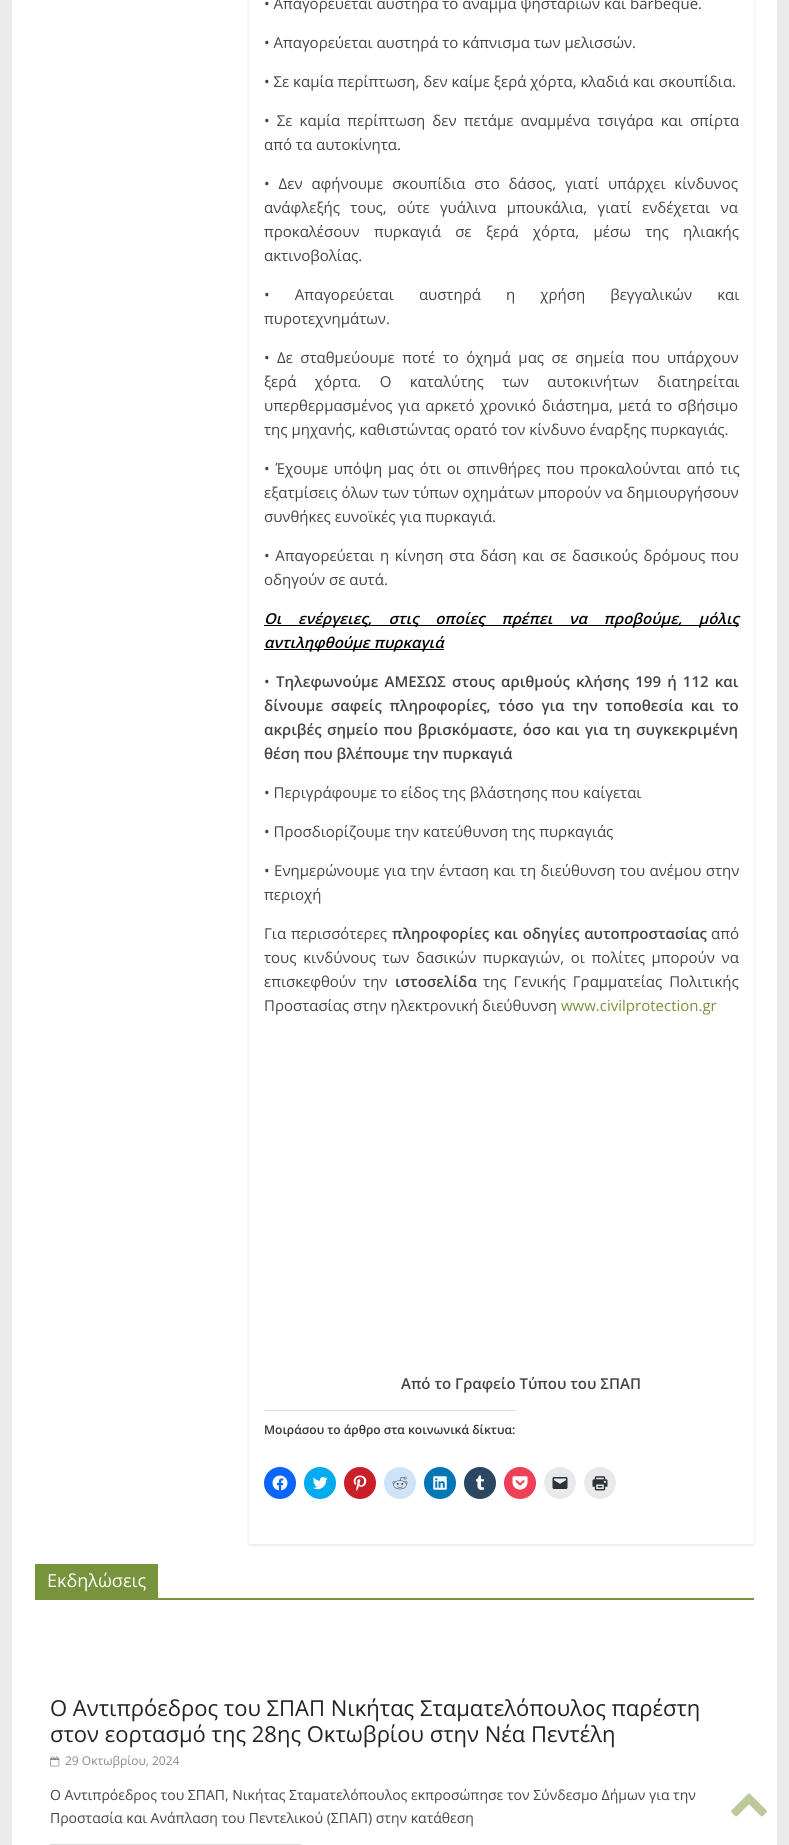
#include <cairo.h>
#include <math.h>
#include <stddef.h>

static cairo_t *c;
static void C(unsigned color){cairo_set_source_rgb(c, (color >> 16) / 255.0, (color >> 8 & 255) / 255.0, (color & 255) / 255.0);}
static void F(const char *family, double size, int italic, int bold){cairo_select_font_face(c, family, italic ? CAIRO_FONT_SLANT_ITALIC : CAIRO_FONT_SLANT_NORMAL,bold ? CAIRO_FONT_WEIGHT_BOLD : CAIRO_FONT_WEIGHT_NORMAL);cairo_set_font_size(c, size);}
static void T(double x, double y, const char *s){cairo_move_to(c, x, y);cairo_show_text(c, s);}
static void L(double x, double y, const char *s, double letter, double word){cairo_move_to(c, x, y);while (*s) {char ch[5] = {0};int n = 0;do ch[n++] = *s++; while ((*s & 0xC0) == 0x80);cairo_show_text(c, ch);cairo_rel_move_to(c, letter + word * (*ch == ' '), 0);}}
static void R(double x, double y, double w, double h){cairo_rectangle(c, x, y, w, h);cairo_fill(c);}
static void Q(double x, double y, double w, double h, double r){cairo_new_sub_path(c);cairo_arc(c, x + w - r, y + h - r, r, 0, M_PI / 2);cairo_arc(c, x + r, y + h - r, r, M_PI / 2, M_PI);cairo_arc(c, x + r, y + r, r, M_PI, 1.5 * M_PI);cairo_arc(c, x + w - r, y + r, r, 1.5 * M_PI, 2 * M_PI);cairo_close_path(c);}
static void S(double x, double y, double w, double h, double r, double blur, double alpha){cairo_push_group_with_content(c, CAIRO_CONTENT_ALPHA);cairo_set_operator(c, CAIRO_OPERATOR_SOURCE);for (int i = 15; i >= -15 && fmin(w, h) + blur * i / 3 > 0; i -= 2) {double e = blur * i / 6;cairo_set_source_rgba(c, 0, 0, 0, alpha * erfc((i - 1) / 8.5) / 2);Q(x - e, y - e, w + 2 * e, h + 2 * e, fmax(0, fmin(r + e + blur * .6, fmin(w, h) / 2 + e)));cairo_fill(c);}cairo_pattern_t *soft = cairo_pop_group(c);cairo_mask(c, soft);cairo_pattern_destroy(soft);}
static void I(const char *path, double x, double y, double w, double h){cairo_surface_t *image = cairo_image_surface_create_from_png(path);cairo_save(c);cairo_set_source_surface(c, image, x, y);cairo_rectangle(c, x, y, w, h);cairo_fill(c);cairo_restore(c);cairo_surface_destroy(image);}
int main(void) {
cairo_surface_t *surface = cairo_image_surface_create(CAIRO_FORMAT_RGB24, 789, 1845);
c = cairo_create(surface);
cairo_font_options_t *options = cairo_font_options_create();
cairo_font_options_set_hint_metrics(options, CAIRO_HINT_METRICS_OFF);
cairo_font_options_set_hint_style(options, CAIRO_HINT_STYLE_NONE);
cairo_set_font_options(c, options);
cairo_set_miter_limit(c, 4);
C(0xeaeaea);
cairo_paint(c);
C(0xffffff);
R(12,0,765,1845);
cairo_save(c);
cairo_set_fill_rule(c,CAIRO_FILL_RULE_EVEN_ODD);
cairo_new_path(c);
cairo_move_to(c,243,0);
cairo_line_to(c,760,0);
cairo_line_to(c,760,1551);
cairo_line_to(c,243,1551);
cairo_close_path(c);
cairo_move_to(c,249,-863);
cairo_line_to(c,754,-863);
cairo_line_to(c,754,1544);
cairo_line_to(c,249,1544);
cairo_close_path(c);
cairo_clip(c);
C(0x000000);
S(249,-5,505,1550,0,1.5,.1);
cairo_restore(c);
F("Open Sans",15,0,0);
C(0x444444);
T(264,9,"• Απαγορεύεται αυστηρά το άναμμα ψησταριών και barbeque.");
T(264,48,"• Απαγορεύεται αυστηρά το κάπνισμα των μελισσών.");
T(264,87,"• Σε καμία περίπτωση, δεν καίμε ξερά χόρτα, κλαδιά και σκουπίδια.");
L(264,126,"• Σε καμία περίπτωση δεν πετάμε αναμμένα τσιγάρα και σπίρτα",0,3.25);
T(264,150,"από τα αυτοκίνητα.");
L(264,189,"• Δεν αφήνουμε σκουπίδια στο δάσος, γιατί υπάρχει κίνδυνος",0,5);
L(264,213,"ανάφλεξής τους, ούτε γυάλινα μπουκάλια, γιατί ενδέχεται να",0,6.5);
L(264,237,"προκαλέσουν πυρκαγιά σε ξερά χόρτα, μέσω της ηλιακής",0,10.5);
T(264,261,"ακτινοβολίας.");
L(264,300,"• Απαγορεύεται αυστηρά η χρήση βεγγαλικών και",0,21.25);
T(264,324,"πυροτεχνημάτων.");
L(264,363,"• Δε σταθμεύουμε ποτέ το όχημά μας σε σημεία που υπάρχουν",0,3.5);
L(264,387,"ξερά χόρτα. Ο καταλύτης των αυτοκινήτων διατηρείται",0,14.5);
L(264,411,"υπερθερμασμένος για αρκετό χρονικό διάστημα, μετά το σβήσιμο",0,1.5);
T(264,435,"της μηχανής, καθιστώντας ορατό τον κίνδυνο έναρξης πυρκαγιάς.");
L(264,474,"• Έχουμε υπόψη μας ότι οι σπινθήρες που προκαλούνται από τις",0,2);
T(264,498,"εξατμίσεις όλων των τύπων οχημάτων μπορούν να δημιουργήσουν");
T(264,522,"συνθήκες ευνοϊκές για πυρκαγιά.");
L(264,561,"• Απαγορεύεται η κίνηση στα δάση και σε δασικούς δρόμους που",0,1.75);
T(264,585,"οδηγούν σε αυτά.");
C(0x000000);
R(264,625,475,1);
F("Open Sans SemiBold",15,1,0);
L(264,624,"Οι ενέργειες, στις οποίες πρέπει να προβούμε, μόλις",0,12.75);
R(264,649,180,1);
T(264,648,"αντιληφθούμε πυρκαγιά");
F("Open Sans",15,0,0);
C(0x444444);
T(264,687,"•");
F("Open Sans SemiBold",15,0,0);
L(276,687,"Τηλεφωνούμε ΑΜΕΣΩΣ στους αριθμούς κλήσης 199 ή 112 και",0,2.25);
L(264,711,"δίνουμε σαφείς πληροφορίες, τόσο για την τοποθεσία και το",0,3.75);
L(264,735,"ακριβές σημείο που βρισκόμαστε, όσο και για τη συγκεκριμένη",0,1.5);
T(264,759,"θέση που βλέπουμε την πυρκαγιά");
F("Open Sans",15,0,0);
T(264,798,"• Περιγράφουμε το είδος της βλάστησης που καίγεται");
T(264,837,"• Προσδιορίζουμε την κατεύθυνση της πυρκαγιάς");
L(264,876,"• Ενημερώνουμε για την ένταση και τη διεύθυνση του ανέμου στην",0,.5);
T(264,900,"περιοχή");
L(264,939,"Για περισσότερες",0,1);
F("Open Sans SemiBold",15,0,0);
L(392,939,"πληροφορίες και οδηγίες αυτοπροστασίας",0,1);
F("Open Sans",15,0,0);
T(711,939,"από");
L(264,963,"τους κινδύνους των δασικών πυρκαγιών, οι πολίτες μπορούν να",0,2.75);
L(264,987,"επισκεφθούν την",0,3);
F("Open Sans SemiBold",15,0,0);
T(395,987,"ιστοσελίδα");
F("Open Sans",15,0,0);
L(483,987,"της Γενικής Γραμματείας Πολιτικής",0,3);
T(264,1011,"Προστασίας στην ηλεκτρονική διεύθυνση");
C(0x77933c);
T(561,1011,"www.civilprotection.gr");
F("Open Sans SemiBold",15,0,0);
C(0x444444);
T(401,1389,"Από το Γραφείο Τύπου του ΣΠΑΠ");
C(0xdcdcde);
R(264,1410,252,1);
F("Open Sans SemiBold",12,0,0);
C(0x333333);
T(264,1434,"Μοιράσου το άρθρο στα κοινωνικά δίκτυα:");
C(0x0866ff);
cairo_new_path(c);
cairo_arc(c,280,1483,16,0,2 * M_PI);
cairo_fill(c);
I("1.png",272,1475,16,16);
C(0x00acee);
cairo_arc(c,320,1483,16,0,2 * M_PI);
cairo_fill(c);
I("2.png",312,1477,16,13);
C(0xca1f27);
cairo_arc(c,360,1483,16,0,2 * M_PI);
cairo_fill(c);
I("3.png",353,1475,14,16);
C(0xcee3f8);
cairo_arc(c,400,1483,16,0,2 * M_PI);
cairo_fill(c);
I("4.png",392,1476,16,14);
C(0x0077b5);
cairo_arc(c,440,1483,16,0,2 * M_PI);
cairo_fill(c);
I("5.png",433,1476,14,14);
C(0x2c4762);
cairo_arc(c,480,1483,16,0,2 * M_PI);
cairo_fill(c);
I("6.png",475,1475,10,15);
C(0xee4056);
cairo_arc(c,520,1483,16,0,2 * M_PI);
cairo_fill(c);
I("7.png",512,1476,16,14);
C(0xe9e9e9);
cairo_arc(c,560,1483,16,0,2 * M_PI);
cairo_fill(c);
I("8.png",552,1477,16,12);
cairo_arc(c,600,1483,16,0,2 * M_PI);
cairo_fill(c);
I("9.png",592,1476,16,15);
C(0x77933c);
R(35,1598,719,2);
R(35,1564,123,34);
F("Open Sans",18,0,0);
C(0xffffff);
T(47,1587,"Εκδηλώσεις");
F("Open Sans",22,0,0);
C(0x232323);
T(50,1716,"Ο Αντιπρόεδρος του ΣΠΑΠ Νικήτας Σταματελόπουλος παρέστη");
T(50,1742,"στον εορτασμό της 28ης Οκτωβρίου στην Νέα Πεντέλη");
I("10.png",50,1756,10,11);
F("Open Sans",12,0,0);
C(0x888888);
T(65,1765,"29 Οκτωβρίου, 2024");
F("Open Sans",14,0,0);
C(0x444444);
T(50,1800,"Ο Αντιπρόεδρος του ΣΠΑΠ, Νικήτας Σταματελόπουλος εκπροσώπησε τον Σύνδεσμο Δήμων για την");
T(50,1823,"Προστασία και Ανάπλαση του Πεντελικού (ΣΠΑΠ) στην κατάθεση");
C(0xdcdcde);
R(50,1844,251,1);
I("11.png",731,1793,36,24);
cairo_surface_write_to_png(surface, "o.png");
cairo_font_options_destroy(options);
cairo_destroy(c);
cairo_surface_destroy(surface);
return 0;
}
